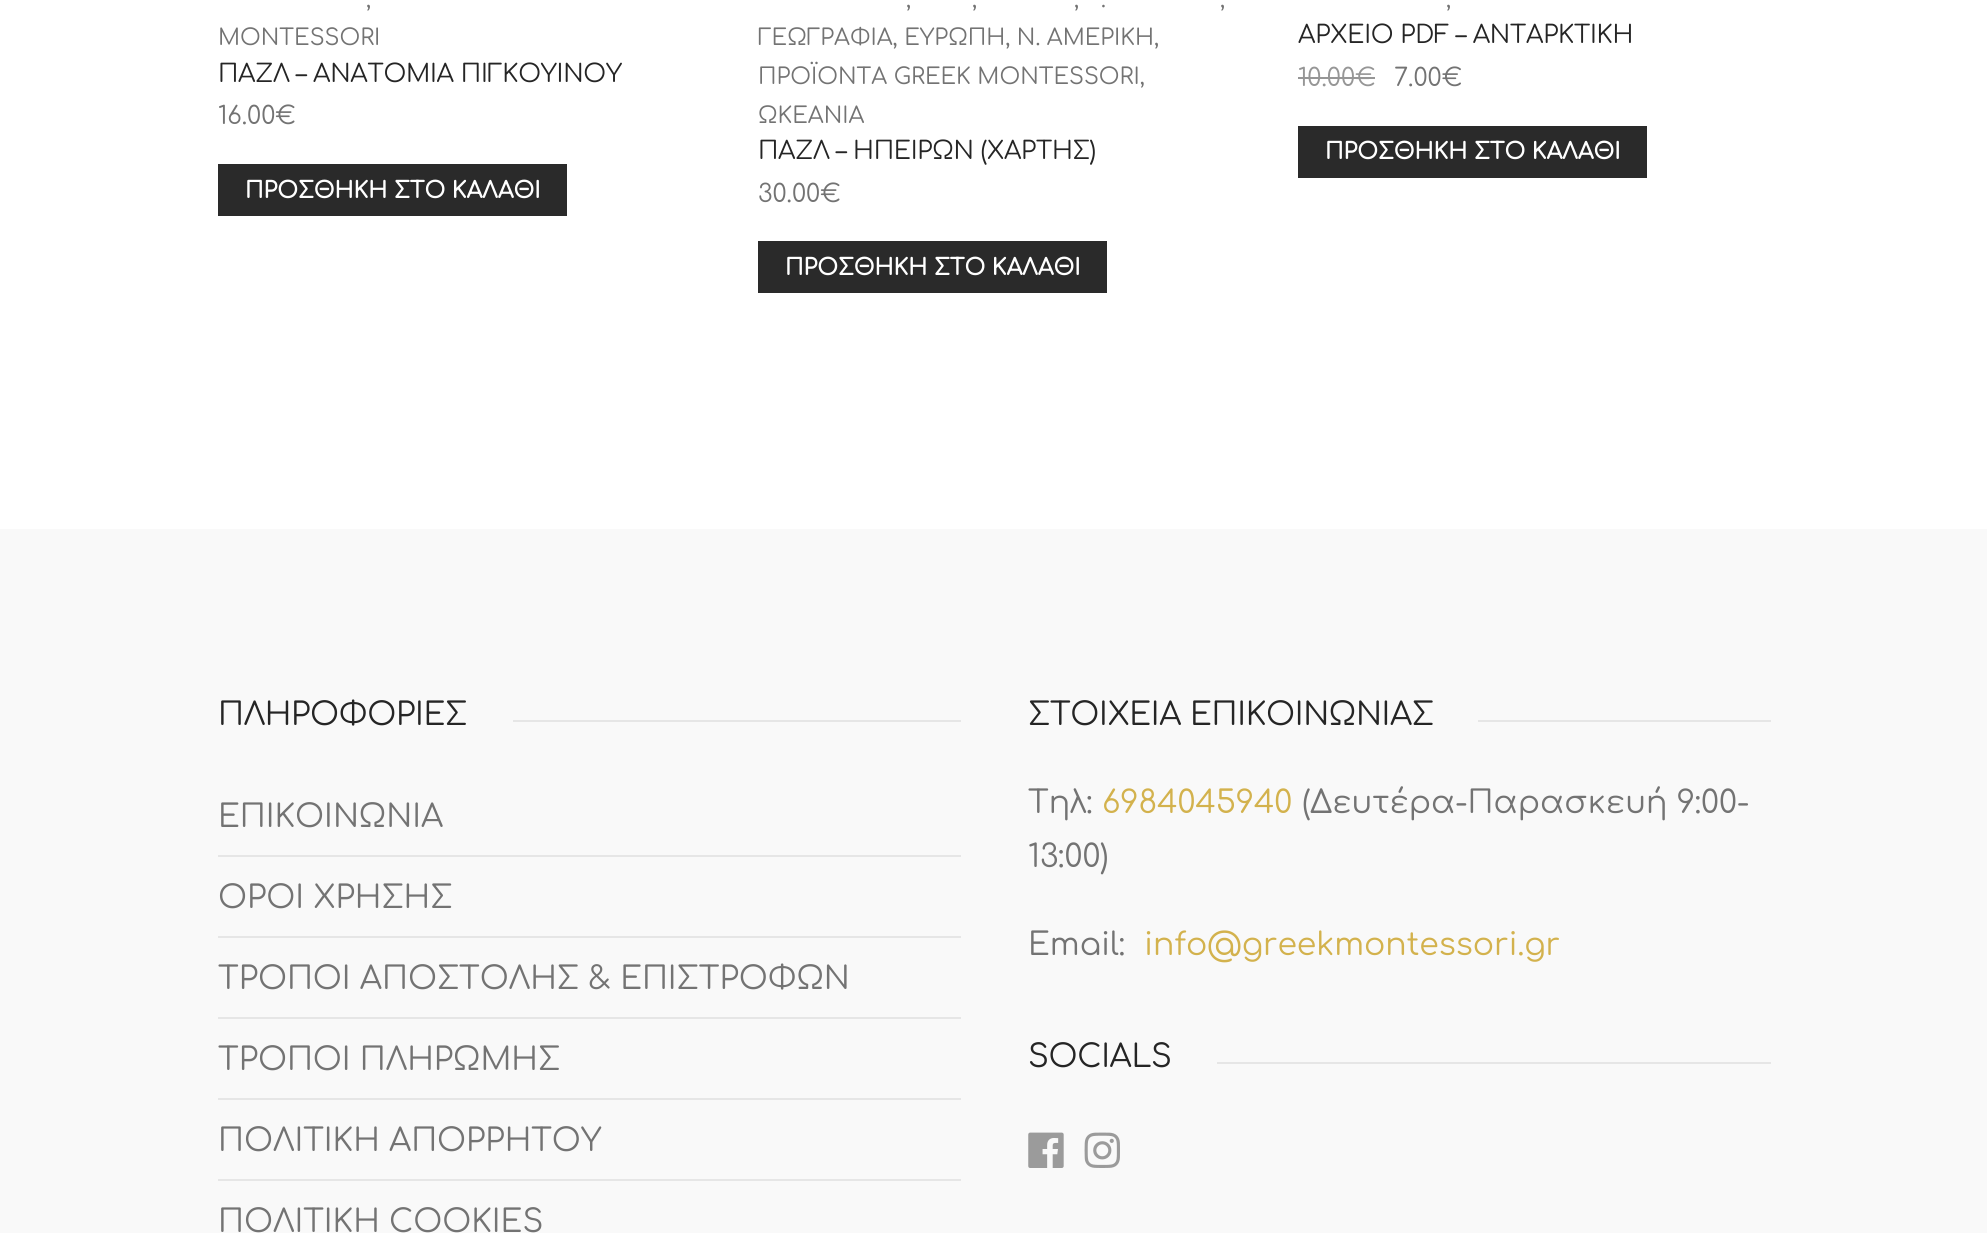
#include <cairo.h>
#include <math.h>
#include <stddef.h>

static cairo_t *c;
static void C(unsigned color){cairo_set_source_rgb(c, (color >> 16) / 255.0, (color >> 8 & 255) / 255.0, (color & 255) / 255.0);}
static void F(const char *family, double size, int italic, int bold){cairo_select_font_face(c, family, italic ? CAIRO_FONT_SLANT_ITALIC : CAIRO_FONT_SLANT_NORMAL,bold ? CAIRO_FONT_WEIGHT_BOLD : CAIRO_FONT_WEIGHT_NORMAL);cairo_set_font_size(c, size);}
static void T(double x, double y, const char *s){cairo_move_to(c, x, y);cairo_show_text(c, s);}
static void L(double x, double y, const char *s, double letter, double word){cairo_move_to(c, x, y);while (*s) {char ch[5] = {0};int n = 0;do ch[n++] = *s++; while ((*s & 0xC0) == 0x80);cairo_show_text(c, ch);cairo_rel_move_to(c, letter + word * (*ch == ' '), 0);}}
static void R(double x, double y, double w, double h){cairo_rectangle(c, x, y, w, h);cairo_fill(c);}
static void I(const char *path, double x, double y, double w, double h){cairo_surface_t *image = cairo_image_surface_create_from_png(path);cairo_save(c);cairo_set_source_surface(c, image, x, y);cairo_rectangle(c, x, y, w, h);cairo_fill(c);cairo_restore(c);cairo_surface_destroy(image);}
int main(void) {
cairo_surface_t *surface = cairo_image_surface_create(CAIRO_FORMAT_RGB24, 1987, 1233);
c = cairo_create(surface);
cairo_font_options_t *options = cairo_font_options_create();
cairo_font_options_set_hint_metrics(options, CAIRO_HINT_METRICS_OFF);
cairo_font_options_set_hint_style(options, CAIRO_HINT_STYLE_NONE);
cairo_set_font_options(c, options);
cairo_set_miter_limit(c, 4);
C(0xffffff);
cairo_paint(c);
F("Comfortaa",22.5,0,0);
C(0x737373);
T(366,7,",");
T(218,45,"MONTESSORI");
F("Comfortaa",24.75,0,0);
C(0x252525);
L(218,82,"ΠΑΖΛ – ΑΝΑΤΟΜΙΑ ΠΙΓΚΟΥΙΝΟΥ",-.25,0);
C(0x737373);
T(218,124,"16.00€");
C(0x2a2a2a);
R(218,164,349,52);
F("Comfortaa",22.5,0,1);
C(0xffffff);
T(245,198,"ΠΡΟΣΘΗΚΗ ΣΤΟ ΚΑΛΑΘΙ");
F("Comfortaa",22.5,0,0);
C(0x737373);
T(906,7,",");
T(972,7,",");
T(1074,7,",");
T(1101,7,".");
T(1220,7,",");
T(758,45,"ΓΕΩΓΡΑΦΙΑ, ΕΥΡΩΠΗ, Ν. ΑΜΕΡΙΚΗ,");
T(758,84,"ΠΡΟΪΟΝΤΑ GREEK MONTESSORI,");
T(758,123,"ΩΚΕΑΝΙΑ");
F("Comfortaa",24.75,0,0);
C(0x252525);
L(758,159,"ΠΑΖΛ – ΗΠΕΙΡΩΝ (ΧΑΡΤΗΣ)",-.25,0);
C(0x737373);
T(758,202,"30.00€");
C(0x2a2a2a);
R(758,241,349,52);
F("Comfortaa",22.5,0,1);
C(0xffffff);
T(785,275,"ΠΡΟΣΘΗΚΗ ΣΤΟ ΚΑΛΑΘΙ");
F("Comfortaa",22.5,0,0);
C(0x737373);
T(1446,7,",");
F("Comfortaa",24.75,0,0);
C(0x252525);
L(1298,43,"ΑΡΧΕΙΟ PDF – ΑΝΤΑΡΚΤΙΚΗ",-.25,0);
C(0x969696);
T(1298,86,"10.00€");
R(1298,77,77,2);
C(0x737373);
T(1394,86,"7.00€");
C(0x2a2a2a);
R(1298,126,349,52);
F("Comfortaa",22.5,0,1);
C(0xffffff);
T(1325,159,"ΠΡΟΣΘΗΚΗ ΣΤΟ ΚΑΛΑΘΙ");
C(0xf9f9f9);
R(0,529,1987,704);
F("Comfortaa",31.5,0,0);
C(0x252525);
L(218,725,"ΠΛΗΡΟΦΟΡΙΕΣ",-.3,0);
C(0xe6e6e6);
R(513,720,448,2);
R(218,855,743,2);
C(0x737373);
T(218,827,"ΕΠΙΚΟΙΝΩΝΙΑ");
C(0xe6e6e6);
R(218,936,743,2);
C(0x737373);
T(218,908,"ΟΡΟΙ ΧΡΗΣΗΣ");
C(0xe6e6e6);
R(218,1017,743,2);
C(0x737373);
T(218,989,"ΤΡΟΠΟΙ ΑΠΟΣΤΟΛΗΣ & ΕΠΙΣΤΡΟΦΩΝ");
C(0xe6e6e6);
R(218,1098,743,2);
C(0x737373);
T(218,1070,"ΤΡΟΠΟΙ ΠΛΗΡΩΜΗΣ");
C(0xe6e6e6);
R(218,1179,743,2);
C(0x737373);
T(218,1151,"ΠΟΛΙΤΙΚΗ ΑΠΟΡΡΗΤΟΥ");
T(218,1232,"ΠΟΛΙΤΙΚΗ COOKIES");
C(0x252525);
L(1028,725,"ΣΤΟΙΧΕΙΑ ΕΠΙΚΟΙΝΩΝΙΑΣ",-.3,0);
C(0xe6e6e6);
R(1478,720,293,2);
C(0x737373);
T(1028,813,"Τηλ:");
C(0xd3b24d);
T(1102,813,"6984045940");
C(0x737373);
T(1302,813,"(Δευτέρα-Παρασκευή 9:00-");
T(1028,867,"13:00)");
T(1028,955,"Email:");
C(0xd3b24d);
T(1144,955,"info@greekmontessori.gr");
C(0x252525);
L(1028,1067,"SOCIALS",-.3,0);
C(0xe6e6e6);
R(1217,1062,554,2);
I("1.png",1028,1132,36,36);
I("2.png",1084,1132,36,36);
cairo_surface_write_to_png(surface, "o.png");
cairo_font_options_destroy(options);
cairo_destroy(c);
cairo_surface_destroy(surface);
return 0;
}
